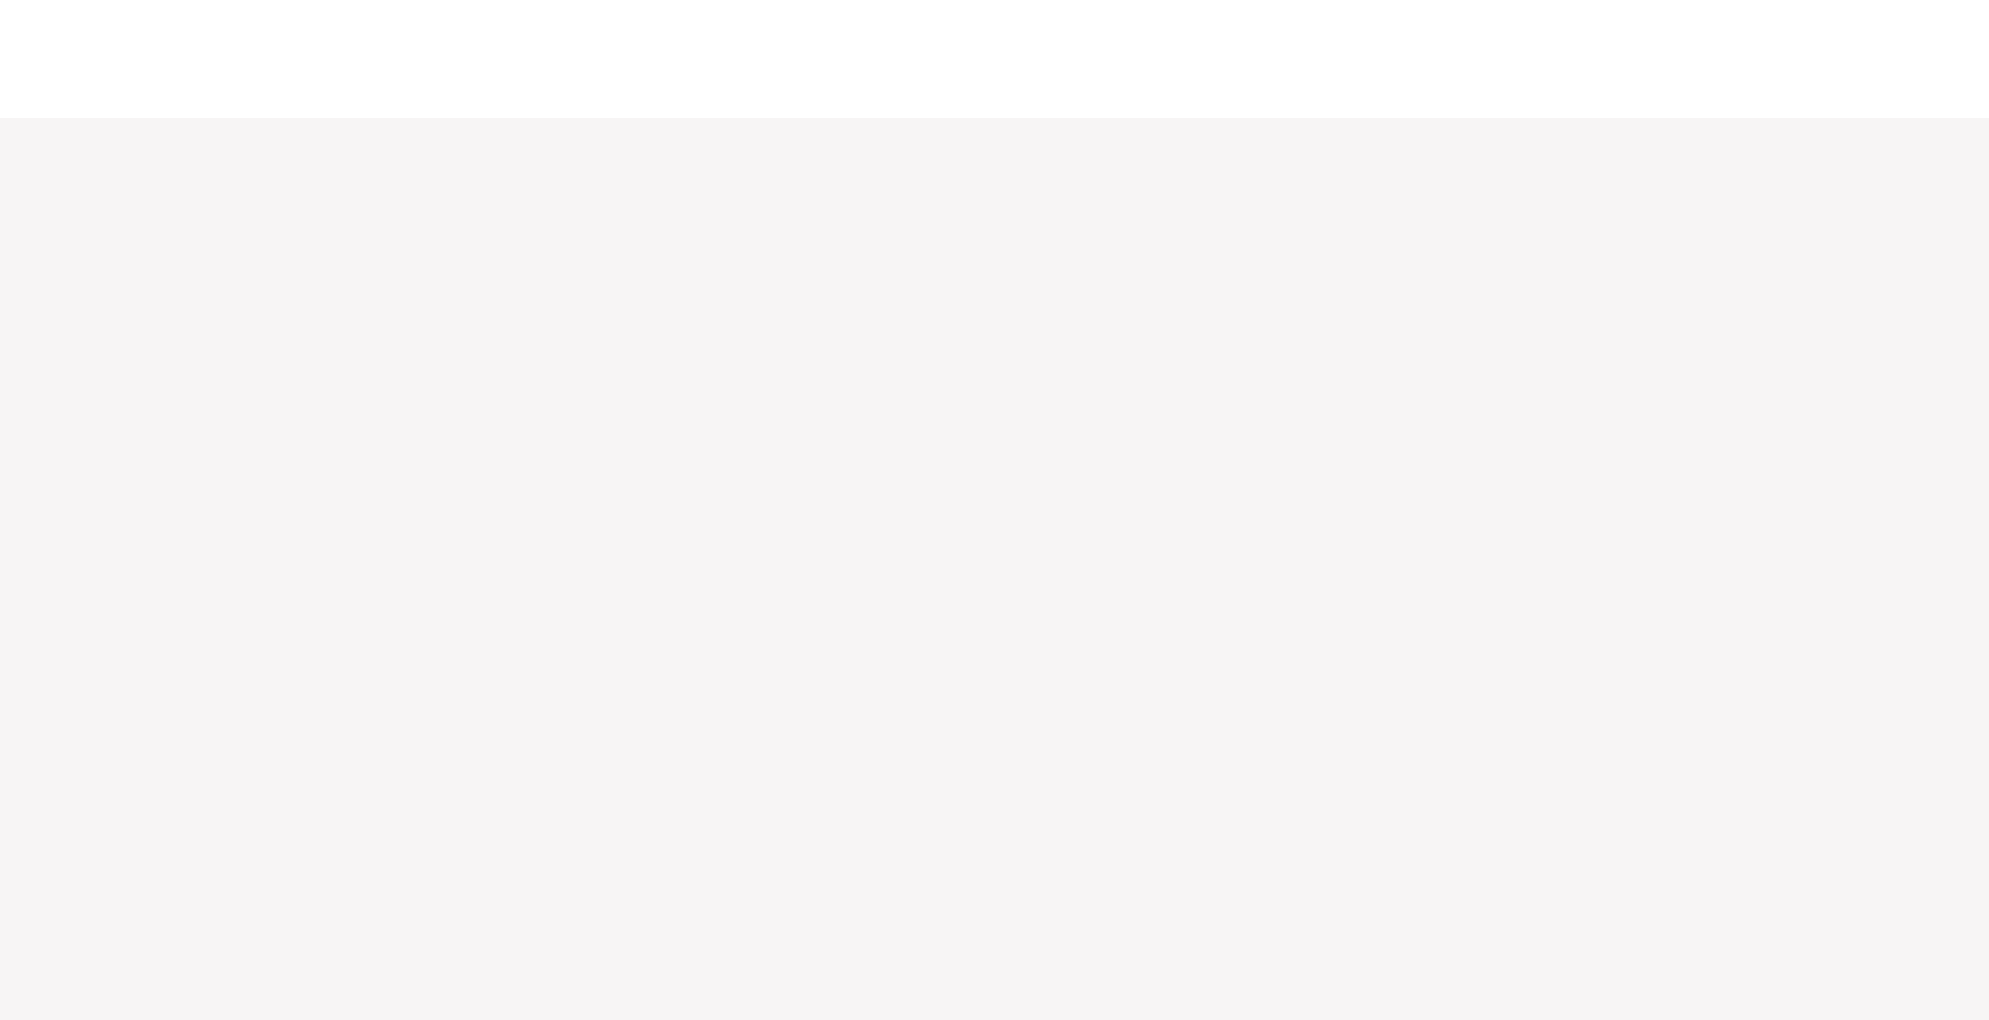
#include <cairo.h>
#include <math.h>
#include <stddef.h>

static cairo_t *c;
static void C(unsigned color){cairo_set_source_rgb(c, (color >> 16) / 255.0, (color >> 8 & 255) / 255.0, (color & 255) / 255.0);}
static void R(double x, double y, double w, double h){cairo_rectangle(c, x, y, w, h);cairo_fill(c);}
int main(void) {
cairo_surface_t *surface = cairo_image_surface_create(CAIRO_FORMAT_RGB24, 1989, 1020);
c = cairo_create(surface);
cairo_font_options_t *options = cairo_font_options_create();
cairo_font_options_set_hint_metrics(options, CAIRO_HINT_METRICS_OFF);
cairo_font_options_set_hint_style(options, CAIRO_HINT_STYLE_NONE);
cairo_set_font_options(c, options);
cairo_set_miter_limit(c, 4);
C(0xffffff);
cairo_paint(c);
C(0xf7f5f5);
R(0,118,1989,902);
cairo_surface_write_to_png(surface, "o.png");
cairo_font_options_destroy(options);
cairo_destroy(c);
cairo_surface_destroy(surface);
return 0;
}
